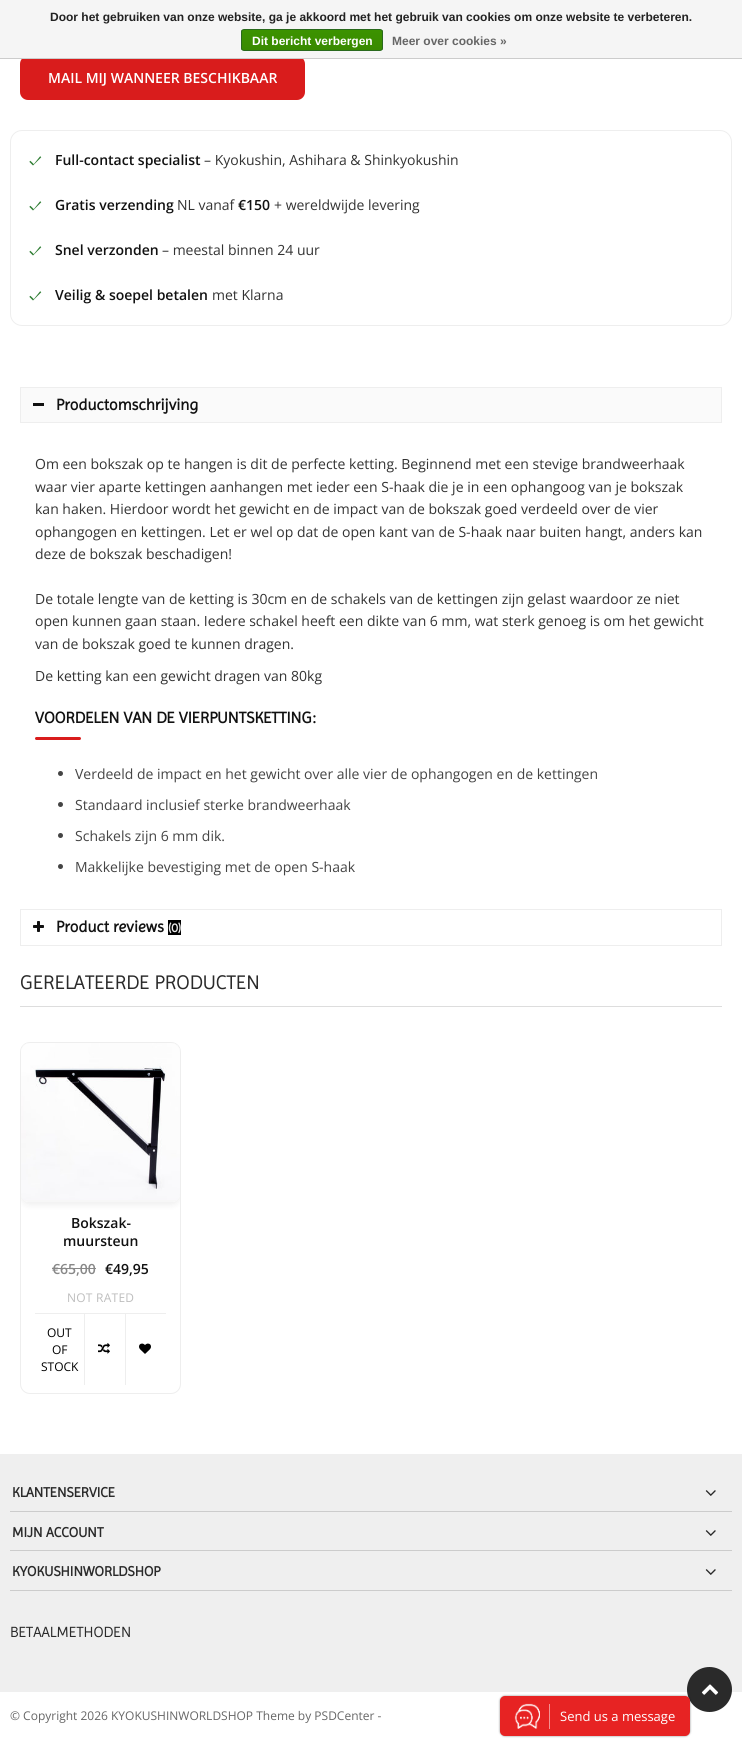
#include <cairo.h>
#include <math.h>
#include <stddef.h>

static cairo_t *c;
static void C(unsigned color){cairo_set_source_rgb(c, (color >> 16) / 255.0, (color >> 8 & 255) / 255.0, (color & 255) / 255.0);}
static void F(const char *family, double size, int italic, int bold){cairo_select_font_face(c, family, italic ? CAIRO_FONT_SLANT_ITALIC : CAIRO_FONT_SLANT_NORMAL,bold ? CAIRO_FONT_WEIGHT_BOLD : CAIRO_FONT_WEIGHT_NORMAL);cairo_set_font_size(c, size);}
static void T(double x, double y, const char *s){cairo_move_to(c, x, y);cairo_show_text(c, s);}
static void L(double x, double y, const char *s, double letter, double word){cairo_move_to(c, x, y);while (*s) {char ch[5] = {0};int n = 0;do ch[n++] = *s++; while ((*s & 0xC0) == 0x80);cairo_show_text(c, ch);cairo_rel_move_to(c, letter + word * (*ch == ' '), 0);}}
static void R(double x, double y, double w, double h){cairo_rectangle(c, x, y, w, h);cairo_fill(c);}
static void Q(double x, double y, double w, double h, double r){cairo_new_sub_path(c);cairo_arc(c, x + w - r, y + h - r, r, 0, M_PI / 2);cairo_arc(c, x + r, y + h - r, r, M_PI / 2, M_PI);cairo_arc(c, x + r, y + r, r, M_PI, 1.5 * M_PI);cairo_arc(c, x + w - r, y + r, r, 1.5 * M_PI, 2 * M_PI);cairo_close_path(c);}
static void S(double x, double y, double w, double h, double r, double blur, double alpha){cairo_push_group_with_content(c, CAIRO_CONTENT_ALPHA);cairo_set_operator(c, CAIRO_OPERATOR_SOURCE);for (int i = 15; i >= -15 && fmin(w, h) + blur * i / 3 > 0; i -= 2) {double e = blur * i / 6;cairo_set_source_rgba(c, 0, 0, 0, alpha * erfc((i - 1) / 8.5) / 2);Q(x - e, y - e, w + 2 * e, h + 2 * e, fmax(0, fmin(r + e + blur * .6, fmin(w, h) / 2 + e)));cairo_fill(c);}cairo_pattern_t *soft = cairo_pop_group(c);cairo_mask(c, soft);cairo_pattern_destroy(soft);}
static void I(const char *path, double x, double y, double w, double h){cairo_surface_t *image = cairo_image_surface_create_from_png(path);cairo_save(c);cairo_set_source_surface(c, image, x, y);cairo_rectangle(c, x, y, w, h);cairo_fill(c);cairo_restore(c);cairo_surface_destroy(image);}
int main(void) {
cairo_surface_t *surface = cairo_image_surface_create(CAIRO_FORMAT_RGB24, 742, 1740);
c = cairo_create(surface);
cairo_font_options_t *options = cairo_font_options_create();
cairo_font_options_set_hint_metrics(options, CAIRO_HINT_METRICS_OFF);
cairo_font_options_set_hint_style(options, CAIRO_HINT_STYLE_NONE);
cairo_set_font_options(c, options);
cairo_set_miter_limit(c, 4);
cairo_pattern_t *gradient;
C(0xffffff);
cairo_paint(c);
C(0xd91c1c);
Q(20,56,285,44,8);
cairo_fill(c);
C(0xf5f5f5);
R(0,0,742,58);
C(0xcccccc);
R(0,58,742,1);
F("Liberation Sans",12,0,1);
C(0x222222);
T(50,21,"Door het gebruiken van onze website, ga je akkoord met het gebruik van cookies om onze website te verbeteren.");
cairo_save(c);
Q(241,29,142,22,3);
cairo_clip(c);
gradient = cairo_pattern_create_linear(312,30,312,50);
cairo_pattern_add_color_stop_rgba(gradient,0,0.235,0.576,0,1);
cairo_pattern_add_color_stop_rgba(gradient,1,0.224,0.541,0,1);
cairo_set_source(c,gradient);
cairo_pattern_destroy(gradient);
R(241,30,142,20);
cairo_restore(c);
Q(241.5,29.5,141,21,2.5);
C(0x29691d);
cairo_set_line_width(c,1);
cairo_stroke(c);
C(0xffffff);
T(252,45,"Dit bericht verbergen");
C(0x666666);
T(392,45,"Meer over cookies »");
F("Open Sans SemiBold",14,0,0);
C(0xffffff);
T(48,83,"MAIL MIJ WANNEER BESCHIKBAAR");
Q(10.5,130.5,721,195,11.5);
C(0xeeeeee);
cairo_stroke(c);
I("1.png",29,156,13,10);
C(0x111111);
T(55,165,"Full-contact specialist");
F("Open Sans",14,0,0);
C(0x333333);
T(204,165,"– Kyokushin, Ashihara & Shinkyokushin");
I("1.png",29,201,13,10);
F("Open Sans SemiBold",14,0,0);
C(0x111111);
T(55,210,"Gratis verzending");
F("Open Sans",14,0,0);
C(0x333333);
T(177,210,"NL vanaf");
F("Open Sans SemiBold",14,0,0);
C(0x111111);
T(238,210,"€150");
F("Open Sans",14,0,0);
C(0x333333);
T(274,210,"+ wereldwijde levering");
I("1.png",29,246,13,10);
F("Open Sans SemiBold",14,0,0);
C(0x111111);
T(55,255,"Snel verzonden");
F("Open Sans",14,0,0);
C(0x333333);
T(162,255,"– meestal binnen 24 uur");
I("1.png",29,291,13,10);
F("Open Sans SemiBold",14,0,0);
C(0x111111);
T(55,300,"Veilig & soepel betalen");
F("Open Sans",14,0,0);
C(0x333333);
T(212,300,"met Klarna");
C(0xfafafa);
cairo_rectangle(c,20.5,387.5,701,35);
cairo_fill_preserve(c);
C(0xeeeeee);
cairo_stroke(c);
C(0x111111);
R(33,403,11,3);
F("Imprima",16,0,1);
T(56,410,"Productomschrijving");
F("Open Sans",14,0,0);
C(0x333333);
T(35,469,"Om een bokszak op te hangen is dit de perfecte ketting. Beginnend met een stevige brandweerhaak");
T(35,492,"waar vier aparte kettingen aanhangen met ieder een S-haak die je in een ophangoog van je bokszak");
T(35,514,"kan haken. Hierdoor wordt het gewicht en de impact van de bokszak goed verdeeld over de vier");
T(35,537,"ophangogen en kettingen. Let er wel op dat de open kant van de S-haak naar buiten hangt, anders kan");
T(35,559,"deze de bokszak beschadigen!");
T(35,604,"De totale lengte van de ketting is 30cm en de schakels van de kettingen zijn gelast waardoor ze niet");
T(35,626,"open kunnen gaan staan. Iedere schakel heeft een dikte van 6 mm, wat sterk genoeg is om het gewicht");
T(35,649,"van de bokszak goed te kunnen dragen.");
T(35,681,"De ketting kan een gewicht dragen van 80kg");
F("Imprima",16,0,1);
C(0x111111);
T(35,723,"VOORDELEN VAN DE VIERPUNTSKETTING:");
C(0xd91c1c);
Q(35,737,46,3,1.5);
cairo_fill(c);
C(0x444444);
cairo_arc(c,60.5,773.5,2.5,0,2 * M_PI);
cairo_fill(c);
F("Open Sans",14,0,0);
T(75,779,"Verdeeld de impact en het gewicht over alle vier de ophangogen en de kettingen");
cairo_new_path(c);
cairo_arc(c,60.5,804.5,2.5,0,2 * M_PI);
cairo_fill(c);
T(75,810,"Standaard inclusief sterke brandweerhaak");
cairo_new_path(c);
cairo_arc(c,60.5,835.5,2.5,0,2 * M_PI);
cairo_fill(c);
T(75,841,"Schakels zijn 6 mm dik.");
cairo_new_path(c);
cairo_arc(c,60.5,866.5,2.5,0,2 * M_PI);
cairo_fill(c);
T(75,872,"Makkelijke bevestiging met de open S-haak");
cairo_rectangle(c,20.5,909.5,701,36);
C(0xeeeeee);
cairo_stroke(c);
I("2.png",33,921,11,11);
F("Imprima",16,0,1);
C(0x111111);
T(56,932,"Product reviews");
C(0x000000);
R(168,920,13,15);
F("Imprima",13,0,1);
C(0xeaeaea);
T(168,932,"(0)");
C(0xdddddd);
R(20,1006,702,1);
F("Imprima",20,0,0);
C(0x2a2a2a);
T(20,989,"GERELATEERDE PRODUCTEN");
Q(20.5,1042.5,160,351,9.5);
C(0xeeeeee);
cairo_stroke(c);
cairo_save(c);
Q(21,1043,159,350,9);
cairo_clip(c);
C(0x000000);
S(21,1045,159,159,8,4,.08);
cairo_restore(c);
C(0xffffff);
cairo_new_path(c);
cairo_move_to(c,30,1043);
cairo_line_to(c,171,1043);
cairo_curve_to(c,176,1043,180,1047,180,1052);
cairo_line_to(c,180,1194);
cairo_curve_to(c,180,1198.5,176.5,1202,172,1202);
cairo_line_to(c,29,1202);
cairo_curve_to(c,24.5,1202,21,1198.5,21,1194);
cairo_line_to(c,21,1052);
cairo_curve_to(c,21,1047,25,1043,30,1043);
cairo_close_path(c);
cairo_fill(c);
cairo_save(c);
Q(21,1043,159,159,8);
cairo_clip(c);
C(0xf7f7f7);
cairo_new_path(c);
cairo_move_to(c,30,1043);
cairo_line_to(c,171,1043);
cairo_curve_to(c,176,1043,180,1047,180,1052);
cairo_line_to(c,180,1194);
cairo_curve_to(c,180,1198.5,176.5,1202,172,1202);
cairo_line_to(c,29,1202);
cairo_curve_to(c,24.5,1202,21,1198.5,21,1194);
cairo_line_to(c,21,1052);
cairo_curve_to(c,21,1047,25,1043,30,1043);
cairo_close_path(c);
cairo_fill(c);
cairo_restore(c);
I("3.png",21,1043,159,157);
F("Open Sans SemiBold",14,0,0);
C(0x111111);
T(71,1228,"Bokszak-");
T(63,1246,"muursteun");
C(0x888888);
T(52,1274,"€65,00");
R(52,1268,44,1);
C(0x111111);
T(105,1274,"€49,95");
F("Open Sans",12,0,0);
C(0xbdbdbd);
L(67,1302,"NOT RATED",.25,0);
C(0xeeeeee);
R(35,1313,131,1);
C(0x000000);
T(47,1337,"OUT");
T(52,1354,"OF");
T(41,1371,"STOCK");
C(0xeeeeee);
R(84,1314,1,71);
I("4.png",98,1343,12,11);
R(125,1314,1,71);
I("5.png",139,1343,12,11);
C(0xefefef);
R(0,1454,742,238);
C(0xcccccc);
R(10,1511,722,1);
F("Imprima",14,0,1);
C(0x2a2a2a);
T(12,1497,"KLANTENSERVICE");
I("6.png",705,1490,11,6);
C(0xcccccc);
R(10,1550,722,1);
C(0x2a2a2a);
T(12,1537,"MIJN ACCOUNT");
I("6.png",705,1530,11,6);
C(0xcccccc);
R(10,1590,722,1);
C(0x2a2a2a);
T(12,1576,"KYOKUSHINWORLDSHOP");
I("6.png",705,1569,11,6);
F("Imprima",15,0,0);
T(10,1637,"BETAALMETHODEN");
cairo_new_path(c);
cairo_arc(c,709.5,1689.5,22.5,0,2 * M_PI);
cairo_fill(c);
I("7.png",701,1684,18,11);
F("Open Sans",12,0,0);
C(0x666666);
T(10,1720,"© Copyright 2026 KYOKUSHINWORLDSHOP Theme by PSDCenter -");
C(0x000000);
S(500,1696,190,40,5,1,.45);
C(0xe72323);
Q(500,1696,190,40,5);
cairo_fill(c);
I("8.png",514,1703,26,26);
C(0xf39191);
R(549,1704,1,25);
F("Open Sans",13,0,0);
C(0xffffff);
T(560,1721,"Send us a message");
cairo_surface_write_to_png(surface, "o.png");
cairo_font_options_destroy(options);
cairo_destroy(c);
cairo_surface_destroy(surface);
return 0;
}
